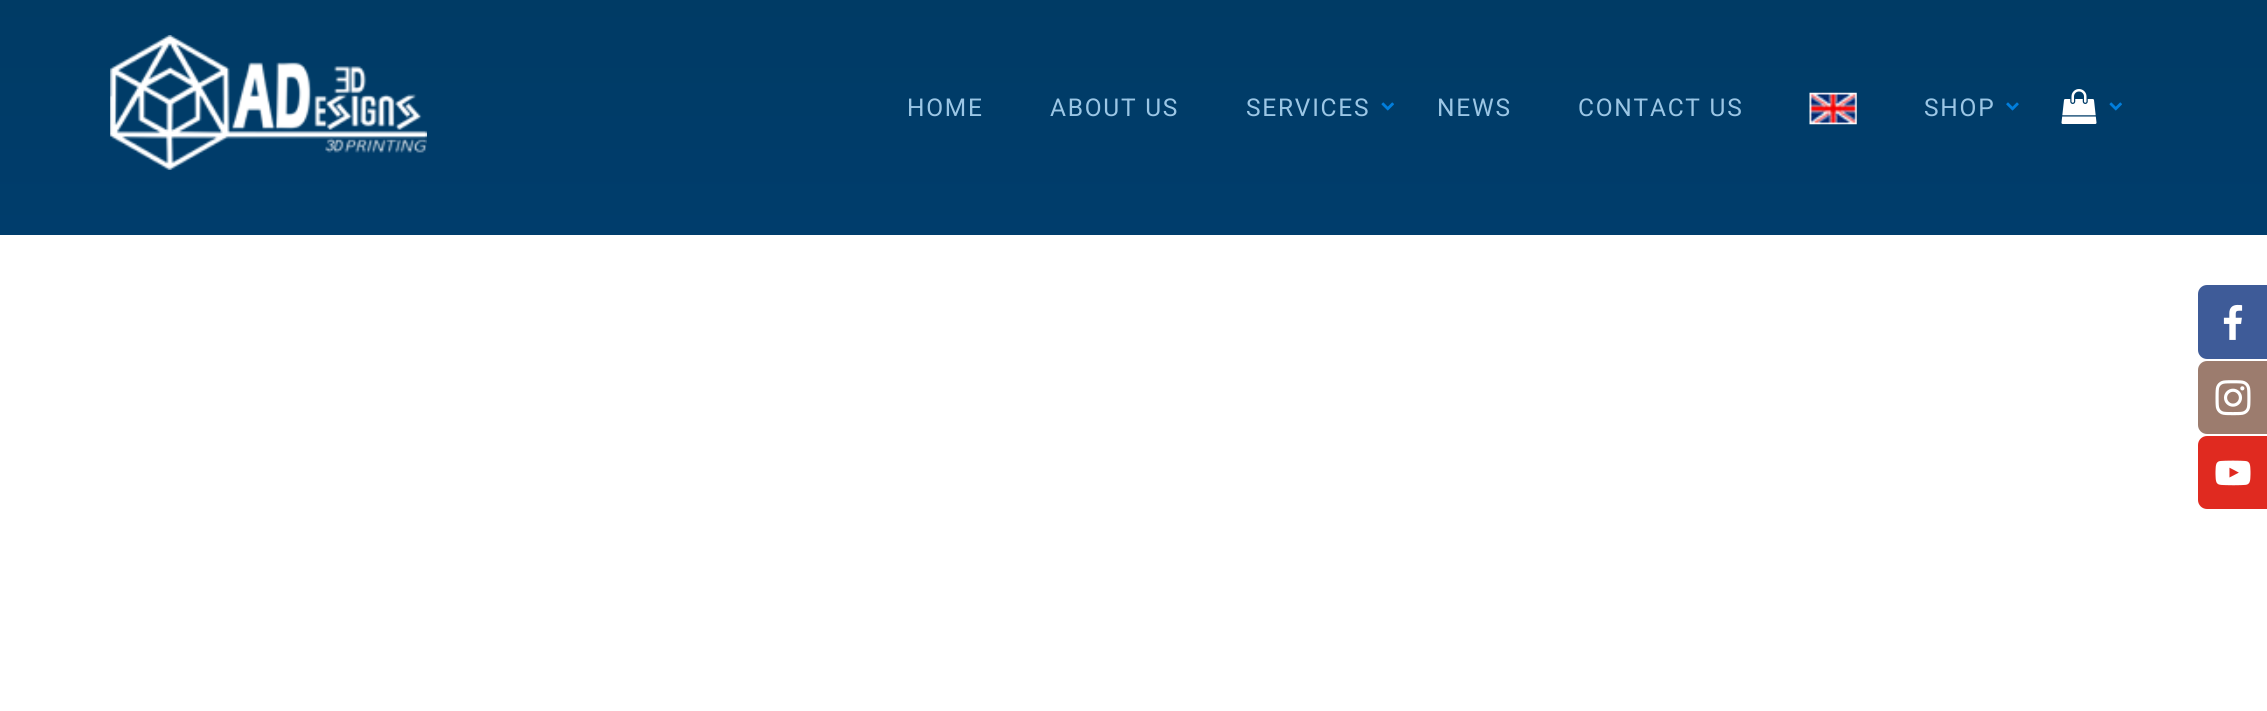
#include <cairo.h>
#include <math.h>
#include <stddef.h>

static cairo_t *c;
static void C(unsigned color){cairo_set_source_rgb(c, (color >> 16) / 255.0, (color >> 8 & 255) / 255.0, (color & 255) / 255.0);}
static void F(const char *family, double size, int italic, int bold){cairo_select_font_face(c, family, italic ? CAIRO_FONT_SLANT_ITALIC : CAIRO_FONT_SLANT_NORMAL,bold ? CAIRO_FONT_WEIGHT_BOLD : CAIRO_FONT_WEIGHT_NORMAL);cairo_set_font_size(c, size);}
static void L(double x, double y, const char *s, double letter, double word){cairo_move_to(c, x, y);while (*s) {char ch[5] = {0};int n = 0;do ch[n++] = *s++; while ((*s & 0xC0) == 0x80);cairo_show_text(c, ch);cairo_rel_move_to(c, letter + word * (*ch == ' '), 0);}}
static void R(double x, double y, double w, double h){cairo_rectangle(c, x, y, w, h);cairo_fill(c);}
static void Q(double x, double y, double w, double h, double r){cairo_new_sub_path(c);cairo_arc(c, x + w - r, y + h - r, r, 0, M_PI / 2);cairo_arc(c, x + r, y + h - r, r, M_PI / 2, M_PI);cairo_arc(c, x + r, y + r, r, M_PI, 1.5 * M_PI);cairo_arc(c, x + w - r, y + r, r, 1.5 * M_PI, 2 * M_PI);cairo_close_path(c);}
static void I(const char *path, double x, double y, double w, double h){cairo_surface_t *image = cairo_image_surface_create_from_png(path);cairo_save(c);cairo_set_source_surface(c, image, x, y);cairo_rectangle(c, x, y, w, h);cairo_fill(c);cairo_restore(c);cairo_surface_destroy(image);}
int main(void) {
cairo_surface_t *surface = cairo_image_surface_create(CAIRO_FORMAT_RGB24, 2267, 711);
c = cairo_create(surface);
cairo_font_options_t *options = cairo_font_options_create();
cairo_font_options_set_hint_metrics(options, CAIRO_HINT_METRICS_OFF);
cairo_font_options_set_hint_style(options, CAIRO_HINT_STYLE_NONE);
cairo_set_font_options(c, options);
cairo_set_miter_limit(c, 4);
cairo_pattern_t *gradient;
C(0xffffff);
cairo_paint(c);
gradient = cairo_pattern_create_linear(1134,0,1134,235);
cairo_pattern_add_color_stop_rgba(gradient,0,0,0.231,0.396,1);
cairo_pattern_add_color_stop_rgba(gradient,1,0,0.239,0.424,1);
cairo_set_source(c,gradient);
cairo_pattern_destroy(gradient);
R(0,0,2267,235);
I("1.png",110,35,317,135);
F("Roboto",24.5,0,0);
C(0x9bc6e5);
L(907,116,"HOME",1.75,0);
L(1050,116,"ABOUT US",1.75,0);
L(1246,116,"SERVICES",1.75,0);
I("2.png",1381,102,13,9);
L(1437,116,"NEWS",1.75,0);
L(1578,116,"CONTACT US",1.75,0);
I("3.png",1809,92,48,33);
L(1924,116,"SHOP",1.75,0);
I("4.png",2006,102,13,9);
I("5.png",2061,89,36,35);
I("2.png",2109,102,13,9);
C(0x3e5b98);
Q(2198,285,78,74,9);
cairo_fill(c);
I("6.png",2223,304,20,36);
C(0x9c7c6e);
Q(2198,361,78,73,9);
cairo_fill(c);
I("7.png",2215,380,36,36);
C(0xe02a20);
Q(2198,436,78,73,9);
cairo_fill(c);
I("8.png",2215,460,36,26);
cairo_surface_write_to_png(surface, "o.png");
cairo_font_options_destroy(options);
cairo_destroy(c);
cairo_surface_destroy(surface);
return 0;
}
